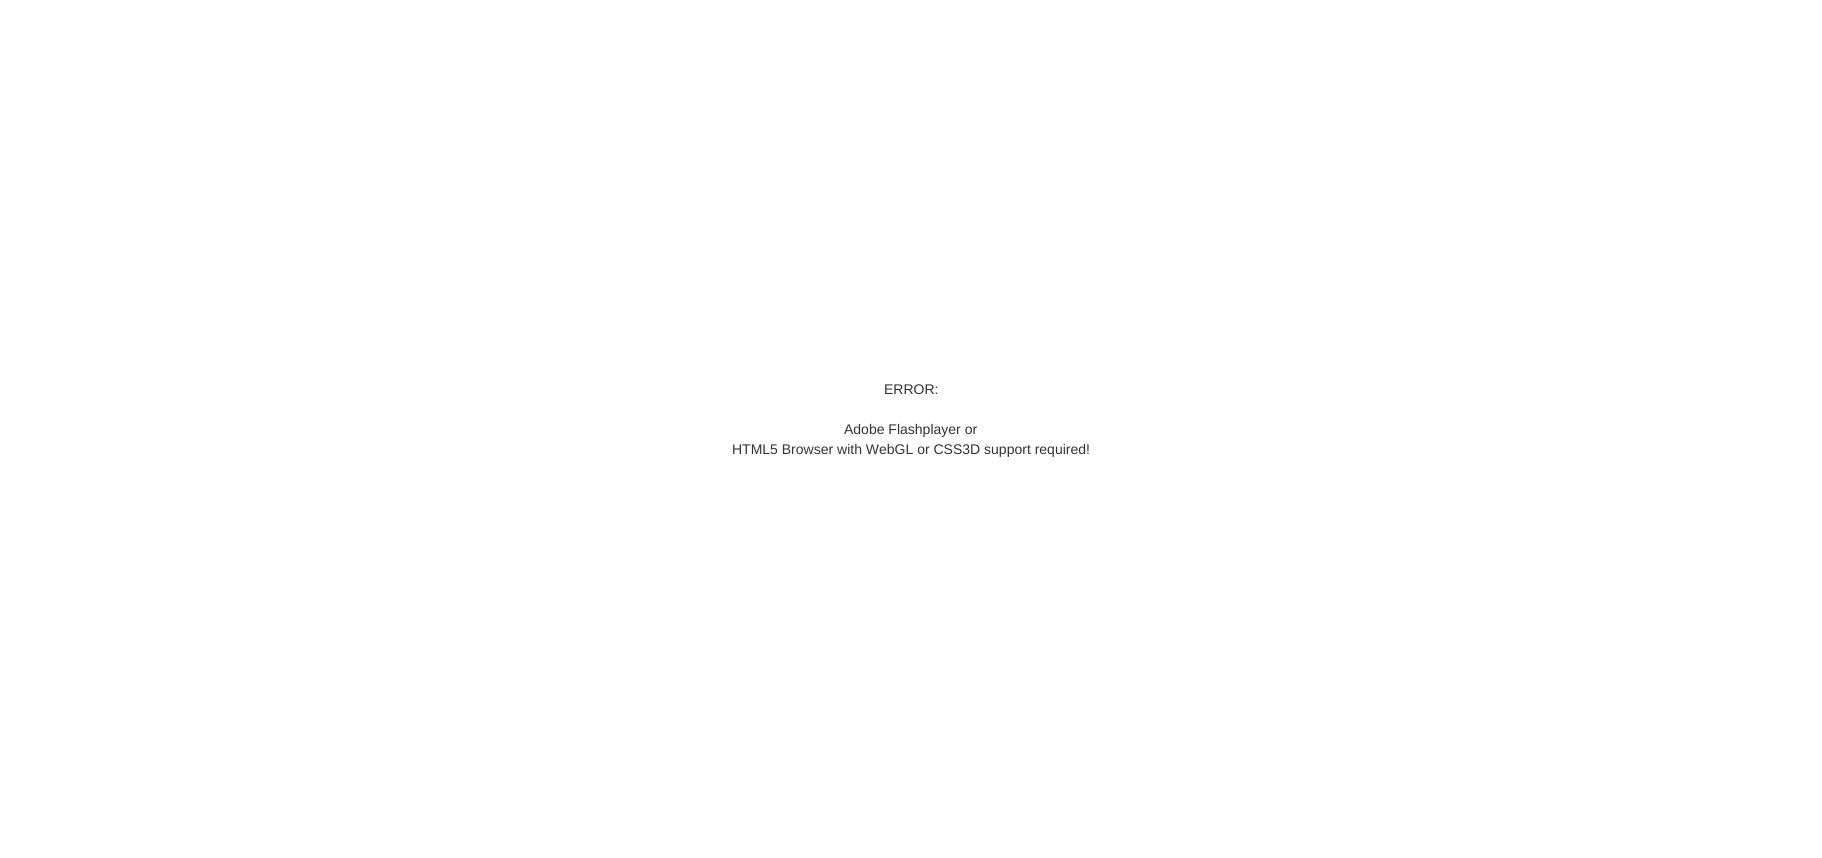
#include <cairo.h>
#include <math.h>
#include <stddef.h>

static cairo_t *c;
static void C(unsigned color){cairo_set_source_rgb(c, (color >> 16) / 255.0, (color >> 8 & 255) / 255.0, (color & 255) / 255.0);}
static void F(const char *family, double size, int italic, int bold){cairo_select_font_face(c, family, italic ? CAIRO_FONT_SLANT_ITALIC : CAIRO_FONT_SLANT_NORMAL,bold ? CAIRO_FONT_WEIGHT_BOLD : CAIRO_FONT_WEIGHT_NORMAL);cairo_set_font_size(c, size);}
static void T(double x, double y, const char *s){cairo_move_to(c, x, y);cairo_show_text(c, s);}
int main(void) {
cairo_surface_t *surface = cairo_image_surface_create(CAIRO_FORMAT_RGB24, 1822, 858);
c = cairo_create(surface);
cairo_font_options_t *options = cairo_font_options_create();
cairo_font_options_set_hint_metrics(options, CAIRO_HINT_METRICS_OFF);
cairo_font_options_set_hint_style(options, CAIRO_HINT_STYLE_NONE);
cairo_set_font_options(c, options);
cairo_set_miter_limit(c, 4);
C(0xffffff);
cairo_paint(c);
F("Liberation Sans",14,0,0);
C(0x333333);
T(884,394,"ERROR:");
T(844,434,"Adobe Flashplayer or");
T(732,454,"HTML5 Browser with WebGL or CSS3D support required!");
cairo_surface_write_to_png(surface, "o.png");
cairo_font_options_destroy(options);
cairo_destroy(c);
cairo_surface_destroy(surface);
return 0;
}
